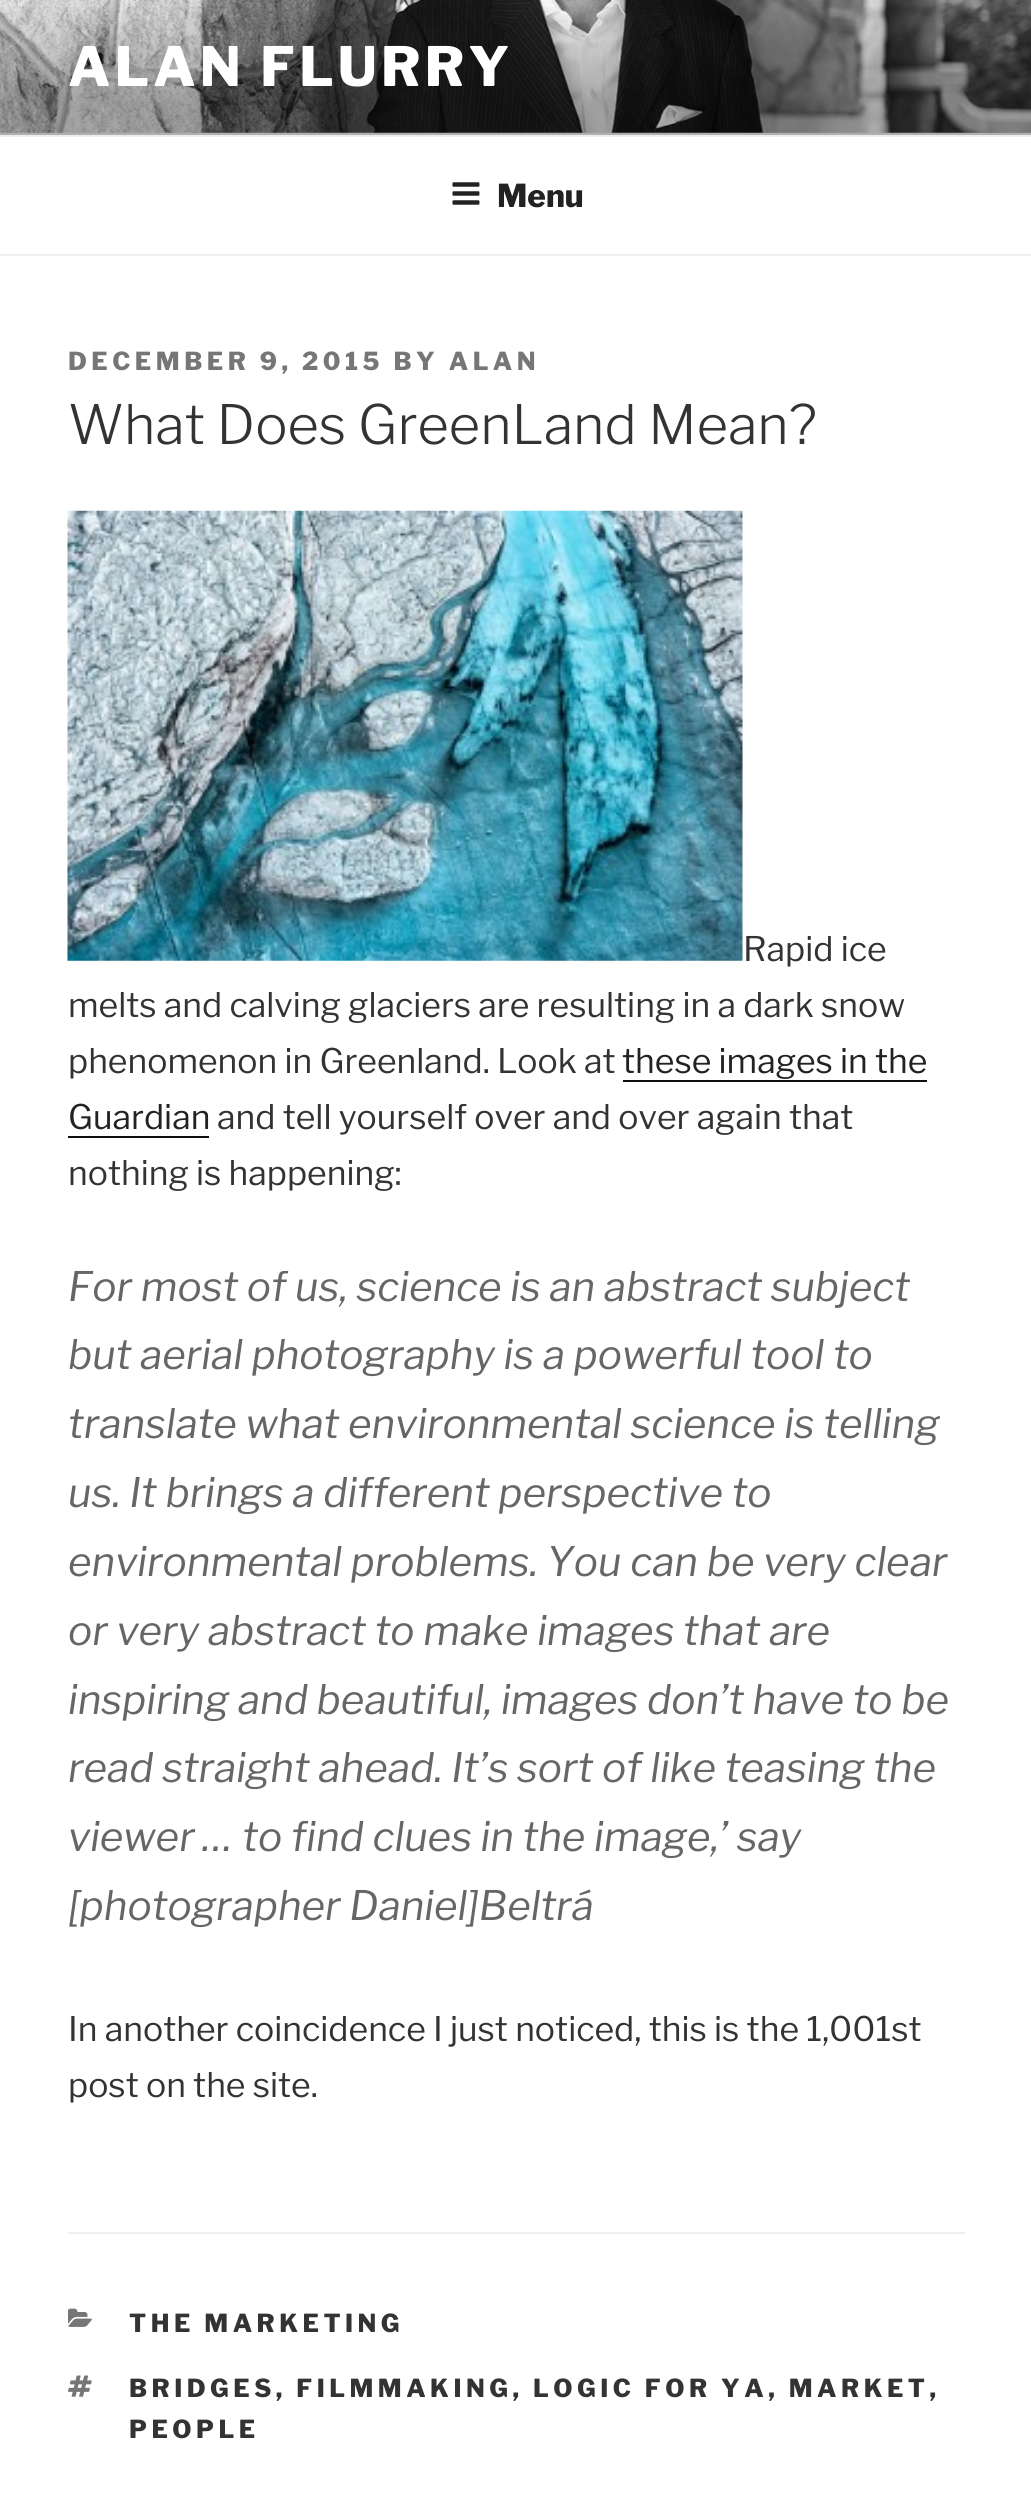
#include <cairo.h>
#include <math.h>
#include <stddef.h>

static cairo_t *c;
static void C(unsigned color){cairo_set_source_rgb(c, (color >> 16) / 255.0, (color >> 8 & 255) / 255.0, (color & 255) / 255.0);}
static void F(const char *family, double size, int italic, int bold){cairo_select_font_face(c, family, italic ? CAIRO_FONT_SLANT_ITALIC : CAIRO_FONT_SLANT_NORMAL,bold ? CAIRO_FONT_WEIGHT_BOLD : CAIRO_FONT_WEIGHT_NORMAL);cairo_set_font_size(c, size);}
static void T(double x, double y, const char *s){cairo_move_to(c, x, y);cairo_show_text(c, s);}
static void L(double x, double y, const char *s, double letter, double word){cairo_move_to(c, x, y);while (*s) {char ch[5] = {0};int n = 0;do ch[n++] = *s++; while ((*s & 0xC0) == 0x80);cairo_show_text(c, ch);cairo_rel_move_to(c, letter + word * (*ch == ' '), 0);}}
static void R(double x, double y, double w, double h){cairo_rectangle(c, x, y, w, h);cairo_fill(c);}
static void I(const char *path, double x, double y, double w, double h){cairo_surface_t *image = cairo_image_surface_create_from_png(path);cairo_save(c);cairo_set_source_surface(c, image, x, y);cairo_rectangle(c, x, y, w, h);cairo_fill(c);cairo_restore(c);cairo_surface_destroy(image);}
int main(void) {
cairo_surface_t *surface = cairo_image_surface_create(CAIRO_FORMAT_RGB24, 1031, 2503);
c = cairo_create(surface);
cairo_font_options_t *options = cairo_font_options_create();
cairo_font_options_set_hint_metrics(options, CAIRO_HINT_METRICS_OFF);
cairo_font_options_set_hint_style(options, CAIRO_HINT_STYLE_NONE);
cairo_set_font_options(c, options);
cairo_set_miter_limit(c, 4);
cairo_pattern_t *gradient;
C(0xffffff);
cairo_paint(c);
C(0xfafafa);
R(0,132,1031,3);
I("1.png",0,0,1031,133);
gradient = cairo_pattern_create_linear(516,0,516,135);
cairo_pattern_add_color_stop_rgba(gradient,0,0,0,0,0);
cairo_pattern_add_color_stop_rgba(gradient,.75,0,0,0,.3);
cairo_pattern_add_color_stop_rgba(gradient,1,0,0,0,.3);
cairo_set_source(c,gradient);
cairo_pattern_destroy(gradient);
R(0,7,1031,128);
F("Libre Franklin ExtraBold",54,0,0);
C(0xffffff);
L(68,86,"ALAN FLURRY",4.25,0);
C(0xeeeeee);
R(0,135,1031,2);
R(0,254,1031,2);
I("2.png",452,182,28,23);
F("Libre Franklin ExtraBold",31.5,0,0);
C(0x222222);
T(497,207,"Menu");
F("Libre Franklin ExtraBold",24.75,0,0);
C(0x767676);
L(68,370,"DECEMBER 9, 2015 BY ALAN",4.5,0);
F("Libre Franklin Light",54,0,0);
C(0x333333);
T(68,444,"What Does GreenLand Mean?");
I("3.png",67,510,676,451);
F("Libre Franklin",33.75,0,0);
T(743,961,"Rapid ice");
T(68,1017,"melts and calving glaciers are resulting in a dark snow");
T(68,1073,"phenomenon in Greenland. Look at");
C(0x222222);
T(622,1073,"these images in the");
C(0x0f0f0f);
R(623,1080,304,2);
C(0x222222);
T(68,1129,"Guardian");
C(0x0f0f0f);
R(68,1136,141,2);
C(0x333333);
T(217,1129,"and tell yourself over and over again that");
T(68,1185,"nothing is happening:");
F("Libre Franklin",40.5,1,0);
C(0x666666);
T(68,1301,"For most of us, science is an abstract subject");
T(68,1369,"but aerial photography is a powerful tool to");
T(68,1438,"translate what environmental science is telling");
T(68,1507,"us. It brings a different perspective to");
T(68,1576,"environmental problems. You can be very clear");
T(68,1645,"or very abstract to make images that are");
T(68,1714,"inspiring and beautiful, images don’t have to be");
T(68,1782,"read straight ahead. It’s sort of like teasing the");
T(68,1851,"viewer … to find clues in the image,’ say");
T(68,1920,"[photographer Daniel]Beltrá");
F("Libre Franklin",33.75,0,0);
C(0x333333);
T(68,2041,"In another coincidence I just noticed, this is the 1,001st");
T(68,2097,"post on the site.");
C(0xeeeeee);
R(68,2232,897,2);
I("4.png",68,2308,24,19);
F("Libre Franklin ExtraBold",24.75,0,0);
C(0x333333);
L(129,2332,"THE MARKETING",4.5,0);
I("5.png",68,2375,24,22);
L(129,2397,"BRIDGES, FILMMAKING, LOGIC FOR YA, MARKET,",4.5,0);
L(129,2438,"PEOPLE",4.5,0);
cairo_surface_write_to_png(surface, "o.png");
cairo_font_options_destroy(options);
cairo_destroy(c);
cairo_surface_destroy(surface);
return 0;
}
